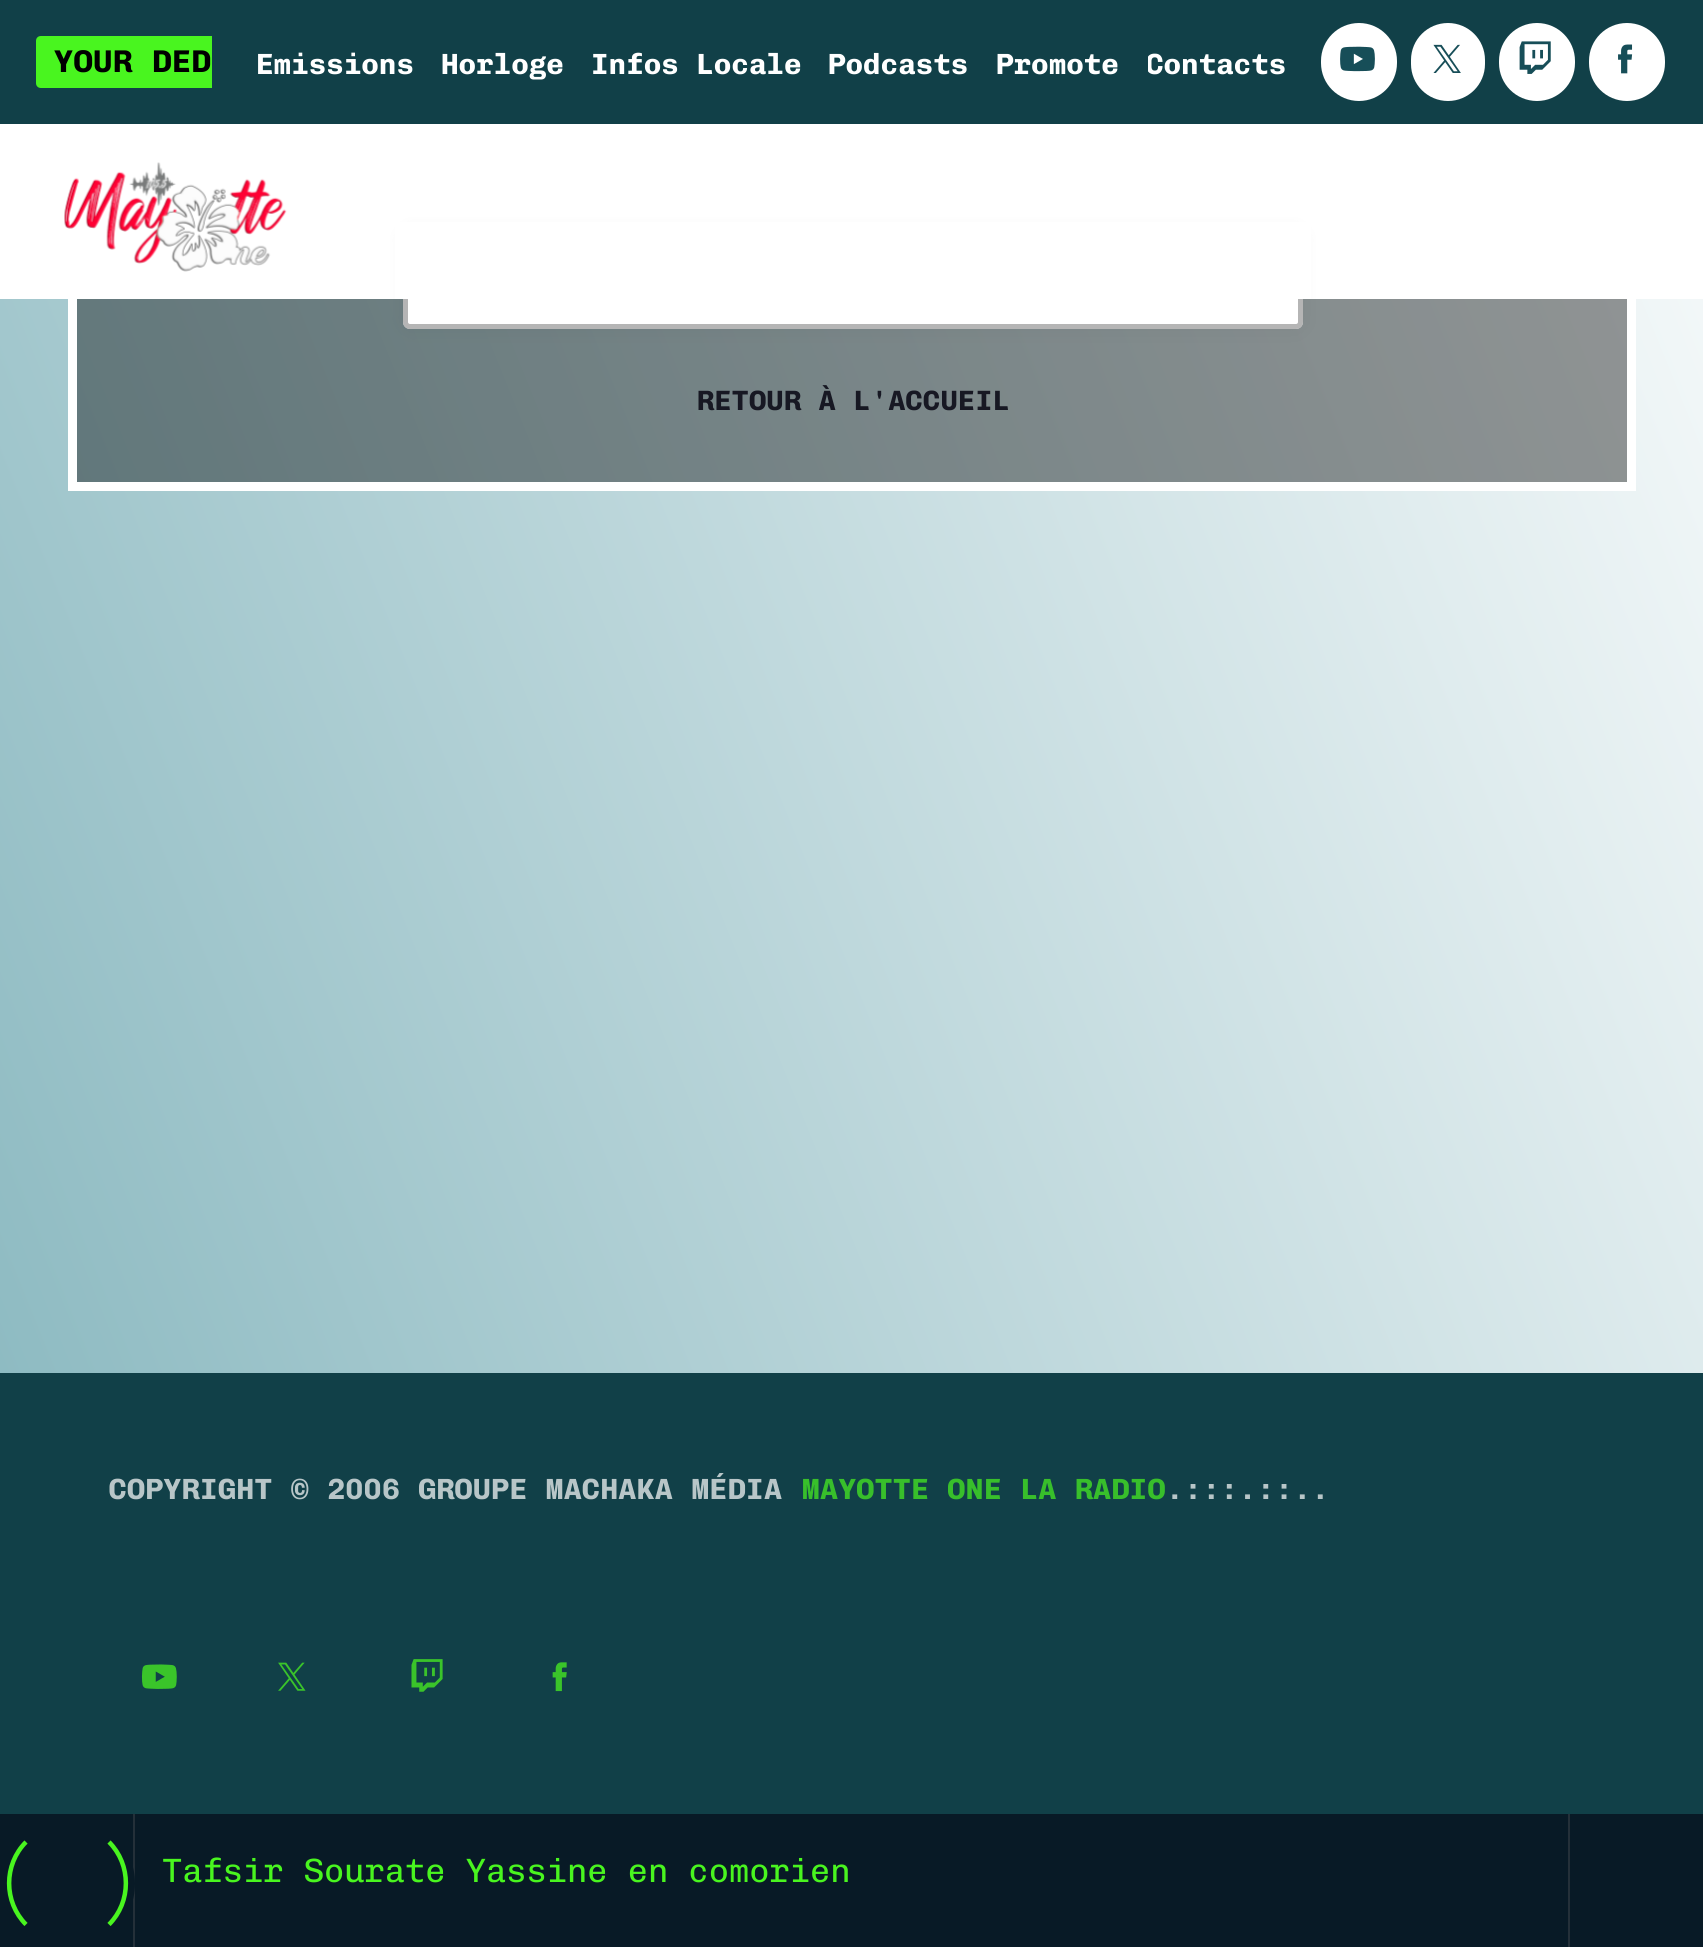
#include <cairo.h>
#include <math.h>
#include <stddef.h>

static cairo_t *c;
static void C(unsigned color){cairo_set_source_rgb(c, (color >> 16) / 255.0, (color >> 8 & 255) / 255.0, (color & 255) / 255.0);}
static void F(const char *family, double size, int italic, int bold){cairo_select_font_face(c, family, italic ? CAIRO_FONT_SLANT_ITALIC : CAIRO_FONT_SLANT_NORMAL,bold ? CAIRO_FONT_WEIGHT_BOLD : CAIRO_FONT_WEIGHT_NORMAL);cairo_set_font_size(c, size);}
static void T(double x, double y, const char *s){cairo_move_to(c, x, y);cairo_show_text(c, s);}
static void L(double x, double y, const char *s, double letter, double word){cairo_move_to(c, x, y);while (*s) {char ch[5] = {0};int n = 0;do ch[n++] = *s++; while ((*s & 0xC0) == 0x80);cairo_show_text(c, ch);cairo_rel_move_to(c, letter + word * (*ch == ' '), 0);}}
static void R(double x, double y, double w, double h){cairo_rectangle(c, x, y, w, h);cairo_fill(c);}
static void Q(double x, double y, double w, double h, double r){cairo_new_sub_path(c);cairo_arc(c, x + w - r, y + h - r, r, 0, M_PI / 2);cairo_arc(c, x + r, y + h - r, r, M_PI / 2, M_PI);cairo_arc(c, x + r, y + r, r, M_PI, 1.5 * M_PI);cairo_arc(c, x + w - r, y + r, r, 1.5 * M_PI, 2 * M_PI);cairo_close_path(c);}
static void S(double x, double y, double w, double h, double r, double blur, double alpha){cairo_push_group_with_content(c, CAIRO_CONTENT_ALPHA);cairo_set_operator(c, CAIRO_OPERATOR_SOURCE);for (int i = 15; i >= -15 && fmin(w, h) + blur * i / 3 > 0; i -= 2) {double e = blur * i / 6;cairo_set_source_rgba(c, 0, 0, 0, alpha * erfc((i - 1) / 8.5) / 2);Q(x - e, y - e, w + 2 * e, h + 2 * e, fmax(0, fmin(r + e + blur * .6, fmin(w, h) / 2 + e)));cairo_fill(c);}cairo_pattern_t *soft = cairo_pop_group(c);cairo_mask(c, soft);cairo_pattern_destroy(soft);}
static void I(const char *path, double x, double y, double w, double h){cairo_surface_t *image = cairo_image_surface_create_from_png(path);cairo_save(c);cairo_set_source_surface(c, image, x, y);cairo_rectangle(c, x, y, w, h);cairo_fill(c);cairo_restore(c);cairo_surface_destroy(image);}
int main(void) {
cairo_surface_t *surface = cairo_image_surface_create(CAIRO_FORMAT_RGB24, 1703, 1947);
c = cairo_create(surface);
cairo_font_options_t *options = cairo_font_options_create();
cairo_font_options_set_hint_metrics(options, CAIRO_HINT_METRICS_OFF);
cairo_font_options_set_hint_style(options, CAIRO_HINT_STYLE_NONE);
cairo_set_font_options(c, options);
cairo_set_miter_limit(c, 4);
cairo_pattern_t *gradient;
C(0xffffff);
cairo_paint(c);
gradient = cairo_pattern_create_linear(-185,915,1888,77);
cairo_pattern_add_color_stop_rgba(gradient,0,0.557,0.733,0.761,1);
cairo_pattern_add_color_stop_rgba(gradient,1,1,1,1,1);
cairo_set_source(c,gradient);
cairo_pattern_destroy(gradient);
R(0,299,1703,1074);
cairo_set_source_rgba(c,0,0,0,0.4);
R(77,299,1550,183);
cairo_rectangle(c,72.5,-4.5,1559,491);
C(0xffffff);
cairo_set_line_width(c,9);
cairo_stroke(c);
C(0x000000);
S(403,230,900,99,7,9,.05);
C(0xffffff);
Q(403,230,900,99,7);
cairo_fill(c);
Q(405.5,232.5,895,94,4.5);
cairo_set_source_rgba(c,0.588,0.588,0.588,0.7);
cairo_set_line_width(c,5);
cairo_stroke(c);
C(0xffffff);
R(395,222,916,77);
C(0x114048);
R(0,0,1703,124);
C(0x49f51f);
cairo_new_path(c);
cairo_move_to(c,41,36);
cairo_line_to(c,212,36);
cairo_line_to(c,212,88);
cairo_line_to(c,41,88);
cairo_curve_to(c,38,88,36,86,36,83);
cairo_line_to(c,36,41);
cairo_curve_to(c,36,38,38,36,41,36);
cairo_close_path(c);
cairo_fill(c);
F("Chivo Mono",31.5,0,1);
C(0x000000);
L(54,72,"YOUR DED",.75,0);
F("Chivo Mono",29.25,0,1);
C(0xffffff);
T(256,74,"Emissions");
T(441,74,"Horloge");
T(591,74,"Infos Locale");
T(828,74,"Podcasts");
T(996,74,"Promote");
cairo_save(c);
cairo_rectangle(c,1148,27,139,74);
cairo_clip(c);
T(1146,74,"Contacts");
cairo_restore(c);
Q(1321,23,76,78,38);
cairo_fill(c);
I("1.png",1340,46,35,26);
Q(1411,23,74,78,37);
cairo_fill(c);
I("2.png",1433,44,28,29);
Q(1499,23,76,78,38);
cairo_fill(c);
I("3.png",1519,41,32,33);
Q(1589,23,76,78,38);
cairo_fill(c);
I("4.png",1618,44,15,30);
I("5.png",64,162,223,110);
F("Chivo Mono",28,0,1);
C(0x171823);
L(697,410,"RETOUR À L'ACCUEIL",.6,0);
C(0x114048);
R(0,1373,1703,441);
F("Chivo Mono",29.25,0,1);
C(0xb8c6c8);
L(109,1499,"COPYRIGHT © 2006 GROUPE MACHAKA MÉDIA",.65,0);
C(0x38bf2b);
L(802,1499,"MAYOTTE ONE LA RADIO",.65,0);
C(0xb8c6c8);
L(1166,1499,".:::.::..",.65,0);
I("6.png",141,1664,36,25);
I("7.png",278,1662,28,29);
I("8.png",411,1659,32,33);
I("9.png",552,1662,15,30);
C(0x081a26);
R(0,1814,1703,133);
C(0x243039);
R(133,1814,2,133);
C(0x081a26);
cairo_arc(c,67.5,1883.5,67.5,0,2 * M_PI);
cairo_fill(c);
cairo_new_path(c);
cairo_move_to(c,109,1842);
cairo_curve_to(c,131.5,1864.5,131.5,1902,109,1924.5);
C(0x49f51f);
cairo_set_line_width(c,4.5);
cairo_stroke(c);
cairo_new_path(c);
cairo_move_to(c,26,1924.5);
cairo_curve_to(c,3.5,1902,3.5,1864.5,26,1842);
cairo_stroke(c);
F("Chivo Mono",33.75,0,0);
T(162,1882,"Tafsir Sourate Yassine en comorien");
C(0x243039);
R(1568,1814,2,133);
cairo_surface_write_to_png(surface, "o.png");
cairo_font_options_destroy(options);
cairo_destroy(c);
cairo_surface_destroy(surface);
return 0;
}
